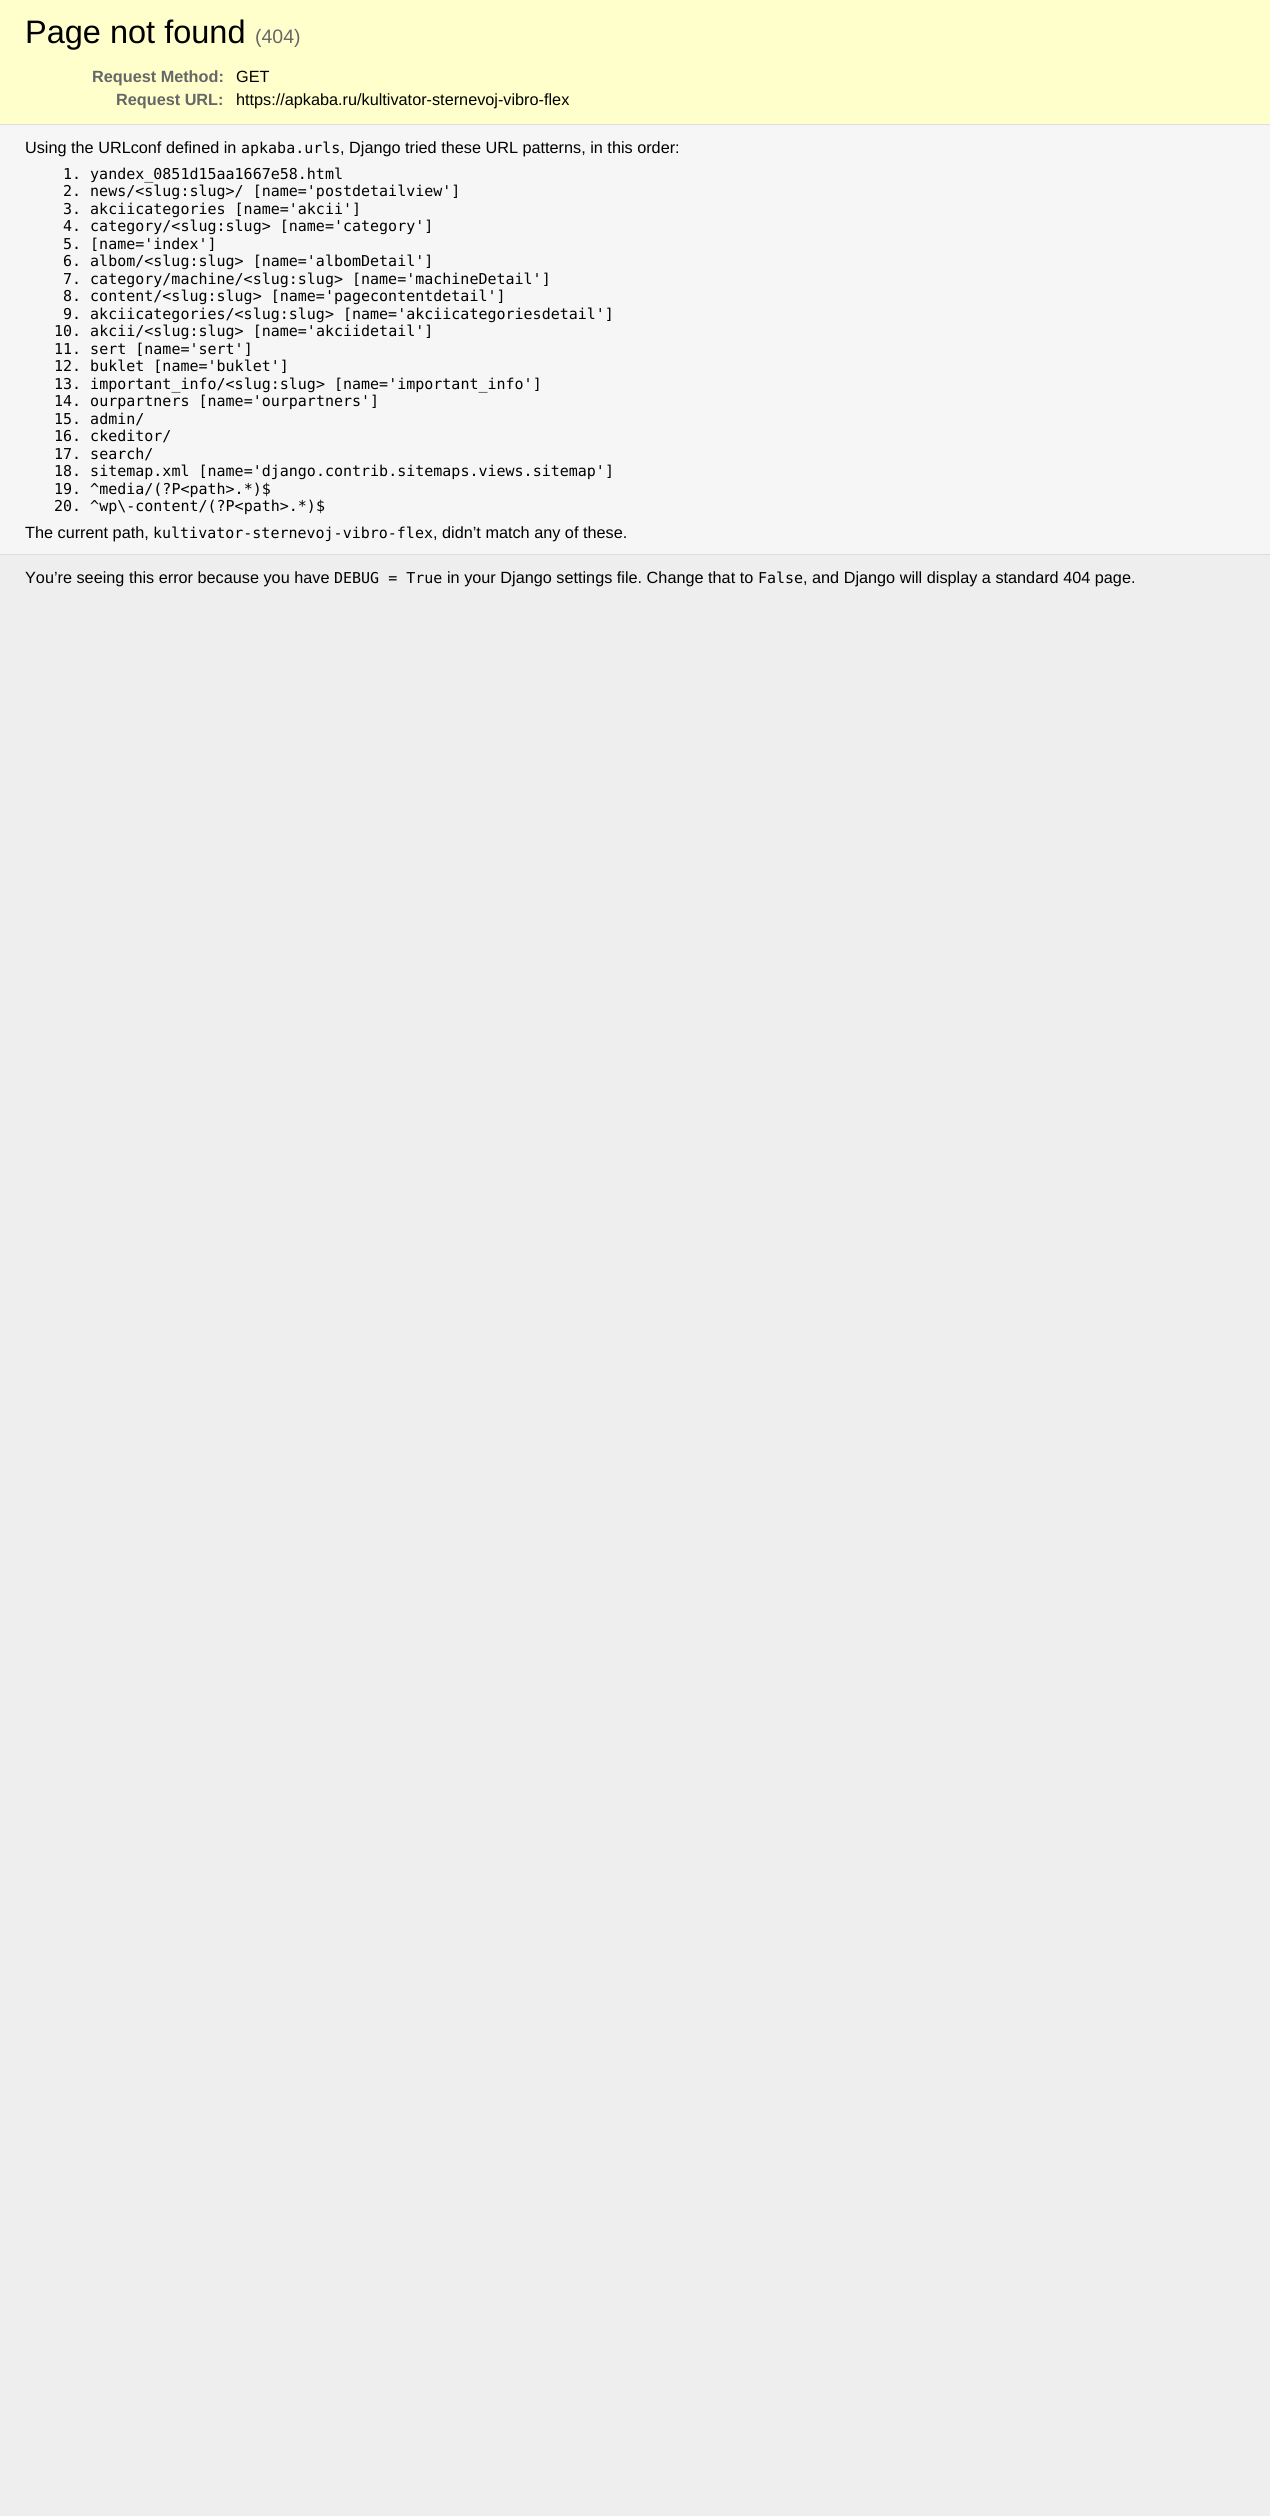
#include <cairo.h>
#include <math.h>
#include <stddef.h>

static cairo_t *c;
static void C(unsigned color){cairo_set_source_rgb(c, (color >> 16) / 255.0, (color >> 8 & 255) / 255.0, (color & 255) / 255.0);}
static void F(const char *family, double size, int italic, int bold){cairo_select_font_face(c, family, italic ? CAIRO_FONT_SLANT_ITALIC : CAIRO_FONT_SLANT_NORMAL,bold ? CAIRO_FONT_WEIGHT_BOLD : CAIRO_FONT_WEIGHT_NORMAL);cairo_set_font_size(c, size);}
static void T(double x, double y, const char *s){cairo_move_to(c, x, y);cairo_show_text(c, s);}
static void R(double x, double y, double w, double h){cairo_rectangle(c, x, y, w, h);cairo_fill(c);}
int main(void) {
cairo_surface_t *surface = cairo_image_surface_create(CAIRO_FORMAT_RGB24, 1270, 2516);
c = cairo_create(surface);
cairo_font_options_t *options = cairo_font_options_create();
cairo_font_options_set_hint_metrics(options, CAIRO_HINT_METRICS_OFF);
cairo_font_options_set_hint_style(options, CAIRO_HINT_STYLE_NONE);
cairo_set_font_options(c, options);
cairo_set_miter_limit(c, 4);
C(0xeeeeee);
cairo_paint(c);
C(0xffffcc);
R(0,0,1270,124);
C(0xdddddd);
R(0,124,1270,1);
F("Liberation Sans",32.5,0,0);
C(0x000000);
T(25,43,"Page not found");
F("Liberation Sans",19.5,0,0);
C(0x666666);
T(255,43,"(404)");
F("Liberation Sans",16.25,0,1);
T(92,82,"Request Method:");
F("Liberation Sans",16.25,0,0);
C(0x000000);
T(236,82,"GET");
F("Liberation Sans",16.25,0,1);
C(0x666666);
T(116,105,"Request URL:");
F("Liberation Sans",16.25,0,0);
C(0x000000);
T(236,105,"https://apkaba.ru/kultivator-sternevoj-vibro-flex");
C(0xf6f6f6);
R(0,125,1270,429);
C(0xdddddd);
R(0,554,1270,1);
C(0x000000);
T(25,153,"Using the URLconf defined in");
F("DejaVu Sans Mono",15,0,0);
T(241,153,"apkaba.urls");
F("Liberation Sans",16.25,0,0);
T(340,153,", Django tried these URL patterns, in this order:");
F("DejaVu Sans Mono",15,0,0);
T(63,179,"1. yandex_0851d15aa1667e58.html");
T(63,196,"2. news/<slug:slug>/ [name='postdetailview']");
T(63,214,"3. akciicategories [name='akcii']");
T(63,231,"4. category/<slug:slug> [name='category']");
T(63,249,"5. [name='index']");
T(63,266,"6. albom/<slug:slug> [name='albomDetail']");
T(63,284,"7. category/machine/<slug:slug> [name='machineDetail']");
T(63,301,"8. content/<slug:slug> [name='pagecontentdetail']");
T(63,319,"9. akciicategories/<slug:slug> [name='akciicategoriesdetail']");
T(54,336,"10. akcii/<slug:slug> [name='akciidetail']");
T(54,354,"11. sert [name='sert']");
T(54,371,"12. buklet [name='buklet']");
T(54,389,"13. important_info/<slug:slug> [name='important_info']");
T(54,406,"14. ourpartners [name='ourpartners']");
T(54,424,"15. admin/");
T(54,441,"16. ckeditor/");
T(54,459,"17. search/");
T(54,476,"18. sitemap.xml [name='django.contrib.sitemaps.views.sitemap']");
T(54,494,"19. ^media/(?P<path>.*)$");
T(54,511,"20. ^wp\\-content/(?P<path>.*)$");
F("Liberation Sans",16.25,0,0);
T(25,538,"The current path,");
F("DejaVu Sans Mono",15,0,0);
T(153,538,"kultivator-sternevoj-vibro-flex");
F("Liberation Sans",16.25,0,0);
T(433,538,", didn’t match any of these.");
T(25,583,"You’re seeing this error because you have");
F("DejaVu Sans Mono",15,0,0);
T(334,583,"DEBUG = True");
F("Liberation Sans",16.25,0,0);
T(447,583,"in your Django settings file. Change that to");
F("DejaVu Sans Mono",15,0,0);
T(758,583,"False");
F("Liberation Sans",16.25,0,0);
T(803,583,", and Django will display a standard 404 page.");
cairo_surface_write_to_png(surface, "o.png");
cairo_font_options_destroy(options);
cairo_destroy(c);
cairo_surface_destroy(surface);
return 0;
}
